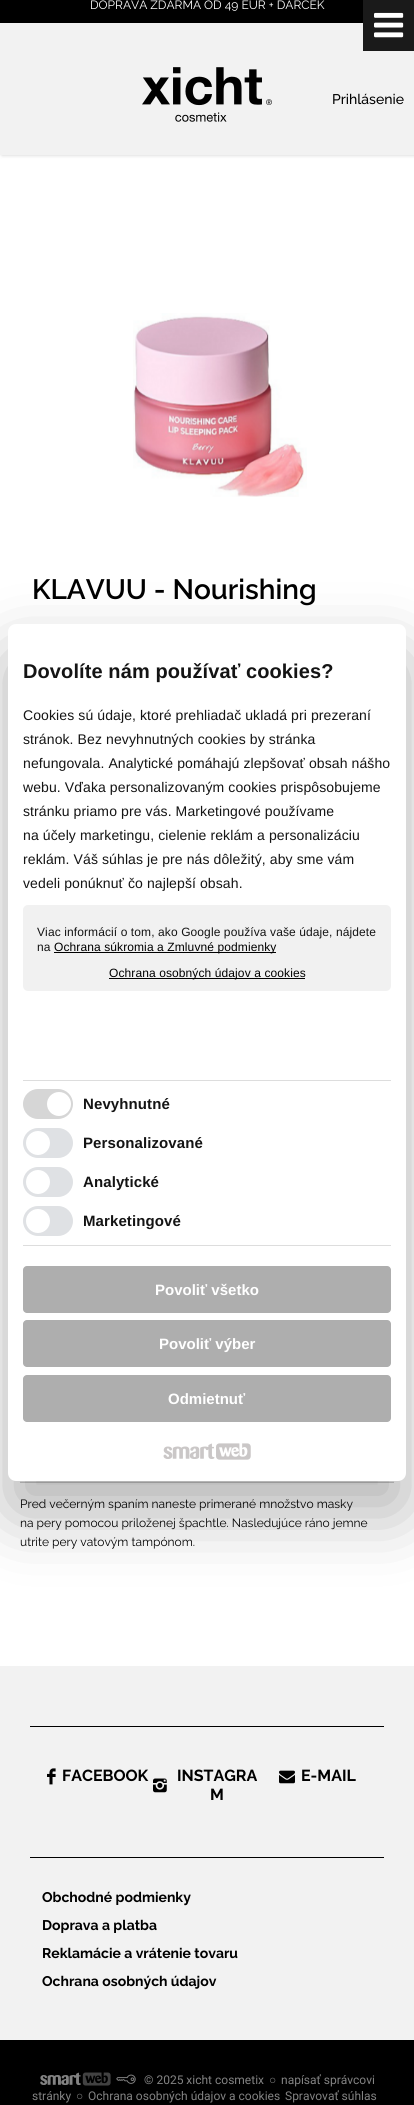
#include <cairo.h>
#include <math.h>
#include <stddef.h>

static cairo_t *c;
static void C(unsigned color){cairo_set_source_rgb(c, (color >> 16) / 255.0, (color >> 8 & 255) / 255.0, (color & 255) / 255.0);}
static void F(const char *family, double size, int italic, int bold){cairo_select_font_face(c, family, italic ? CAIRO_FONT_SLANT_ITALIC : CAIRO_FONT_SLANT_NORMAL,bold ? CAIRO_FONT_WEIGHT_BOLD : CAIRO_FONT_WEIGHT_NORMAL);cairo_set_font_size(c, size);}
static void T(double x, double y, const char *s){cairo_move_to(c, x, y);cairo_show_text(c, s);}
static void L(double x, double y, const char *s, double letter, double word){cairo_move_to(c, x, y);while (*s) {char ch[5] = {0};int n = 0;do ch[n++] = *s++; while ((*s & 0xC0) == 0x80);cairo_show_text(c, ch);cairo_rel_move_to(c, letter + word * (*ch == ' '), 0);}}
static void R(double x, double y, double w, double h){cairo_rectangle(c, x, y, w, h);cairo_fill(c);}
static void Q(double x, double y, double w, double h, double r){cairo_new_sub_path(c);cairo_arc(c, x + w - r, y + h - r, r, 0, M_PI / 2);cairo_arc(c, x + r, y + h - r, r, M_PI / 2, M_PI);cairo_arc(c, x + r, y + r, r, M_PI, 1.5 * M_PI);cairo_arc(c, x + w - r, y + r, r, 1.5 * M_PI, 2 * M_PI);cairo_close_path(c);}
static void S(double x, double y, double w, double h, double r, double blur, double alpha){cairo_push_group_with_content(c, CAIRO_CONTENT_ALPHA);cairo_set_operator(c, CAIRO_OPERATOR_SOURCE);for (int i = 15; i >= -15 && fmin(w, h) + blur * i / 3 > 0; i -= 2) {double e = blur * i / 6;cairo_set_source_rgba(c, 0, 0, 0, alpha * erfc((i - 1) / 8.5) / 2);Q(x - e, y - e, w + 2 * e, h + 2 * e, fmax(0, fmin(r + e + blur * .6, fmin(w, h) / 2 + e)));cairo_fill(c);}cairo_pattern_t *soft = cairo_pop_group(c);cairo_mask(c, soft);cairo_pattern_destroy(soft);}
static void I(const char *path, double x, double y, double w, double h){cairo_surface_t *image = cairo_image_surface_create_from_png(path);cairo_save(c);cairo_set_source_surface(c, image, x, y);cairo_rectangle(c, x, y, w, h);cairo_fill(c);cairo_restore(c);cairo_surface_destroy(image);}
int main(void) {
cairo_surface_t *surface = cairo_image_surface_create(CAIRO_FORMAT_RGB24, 414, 2105);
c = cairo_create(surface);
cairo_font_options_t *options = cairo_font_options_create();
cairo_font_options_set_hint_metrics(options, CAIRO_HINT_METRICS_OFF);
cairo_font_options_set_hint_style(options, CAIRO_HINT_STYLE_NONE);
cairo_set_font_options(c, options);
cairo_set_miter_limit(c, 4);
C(0xffffff);
cairo_paint(c);
C(0x000000);
R(0,0,363,23);
F("Raleway",12,0,0);
C(0xffffff);
T(90,9,"DOPRAVA ZDARMA OD 49 EUR + DARČEK");
C(0x000000);
S(2,23,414,132,0,2,.2);
C(0xf2f2f2);
R(0,23,414,132);
I("1.png",142,67,130,55);
F("Raleway Medium",14,0,0);
C(0x000000);
T(332,104,"Prihlásenie");
I("2.png",133,313,174,184);
F("Raleway SemiBold",28,0,0);
T(32,599,"KLAVUU - Nourishing");
C(0xf2f2f2);
R(20,1481,374,1);
C(0xcccccc);
R(20,1482,374,1);
F("Raleway",12,0,0);
C(0x000000);
T(20,1508,"Pred večerným spaním naneste primerané množstvo masky");
T(20,1527,"na pery pomocou priloženej špachtle. Nasledujúce ráno jemne");
T(20,1546,"utrite pery vatovým tampónom.");
C(0x000000);
S(8,656,398,857,8,34,.3);
C(0xffffff);
Q(8,624,398,857,8);
cairo_fill(c);
F("Liberation Sans",20,0,1);
C(0x141414);
L(23,678,"Dovolíte nám používať cookies?",.1,0);
F("Liberation Sans",14,0,0);
L(23,720,"Cookies sú údaje, ktoré prehliadač ukladá pri prezeraní",.1,0);
L(23,744,"stránok. Bez nevyhnutných cookies by stránka",.1,0);
L(23,768,"nefungovala. Analytické pomáhajú zlepšovať obsah nášho",.1,0);
L(23,792,"webu. Vďaka personalizovaným cookies prispôsobujeme",.1,0);
L(23,816,"stránku priamo pre vás. Marketingové používame",.1,0);
L(23,840,"na účely marketingu, cielenie reklám a personalizáciu",.1,0);
L(23,864,"reklám. Váš súhlas je pre nás dôležitý, aby sme vám",.1,0);
L(23,888,"vedeli ponúknuť čo najlepší obsah.",.1,0);
C(0xf1f1f1);
Q(23,905,368,86,5);
cairo_fill(c);
F("Liberation Sans",12,0,0);
C(0x141414);
L(37,936,"Viac informácií o tom, ako Google používa vaše údaje, nájdete",.1,0);
L(37,951,"na",.1,0);
C(0x000000);
R(54,952,222,1);
L(54,951,"Ochrana súkromia a Zmluvné podmienky",.1,0);
R(109,978,196,1);
L(109,977,"Ochrana osobných údajov a cookies",.1,0);
C(0xdddddd);
R(23,1080,368,1);
R(23,1245,368,1);
C(0xd6d6d6);
Q(23,1089,50,30,15);
cairo_fill(c);
C(0xffffff);
cairo_arc(c,59,1104,12,0,2 * M_PI);
cairo_fill(c);
F("Liberation Sans",15,0,1);
C(0x141414);
L(83,1109,"Nevyhnutné",.1,0);
C(0xdfe1e4);
Q(23,1128,50,30,15);
cairo_fill(c);
C(0xffffff);
cairo_arc(c,38,1143,12,0,2 * M_PI);
cairo_fill(c);
C(0x141414);
L(83,1148,"Personalizované",.1,0);
C(0xdfe1e4);
Q(23,1167,50,30,15);
cairo_fill(c);
C(0xffffff);
cairo_arc(c,38,1182,12,0,2 * M_PI);
cairo_fill(c);
C(0x141414);
L(83,1187,"Analytické",.1,0);
C(0xdfe1e4);
Q(23,1206,50,30,15);
cairo_fill(c);
C(0xffffff);
cairo_arc(c,38,1221,12,0,2 * M_PI);
cairo_fill(c);
C(0x141414);
L(83,1226,"Marketingové",.1,0);
C(0xaeaeae);
Q(23,1266,368,47,4);
cairo_fill(c);
C(0xffffff);
T(155,1295,"Povoliť všetko");
C(0xaeaeae);
Q(23,1320,368,47,4);
cairo_fill(c);
C(0xffffff);
T(159,1349,"Povoliť výber");
C(0xaeaeae);
Q(23,1375,368,47,4);
cairo_fill(c);
C(0xffffff);
T(168,1404,"Odmietnuť");
I("3.png",163,1443,52,16);
I("4.png",216,1443,35,17);
C(0xf2f2f2);
R(0,1666,414,374);
C(0x000000);
R(0,2040,414,65);
R(30,1726,354,1);
I("5.png",47,1768,9,17);
F("Raleway",16,0,1);
T(62,1781,"FACEBOOK");
I("6.png",153,1778,14,15);
T(177,1781,"INSTAGRA");
T(210,1800,"M");
I("7.png",279,1770,16,14);
T(301,1781,"E-MAIL");
R(30,1857,354,1);
F("Raleway",14,0,1);
T(42,1902,"Obchodné podmienky");
T(42,1930,"Doprava a platba");
T(42,1958,"Reklamácie a vrátenie tovaru");
T(42,1986,"Ochrana osobných údajov");
I("8.png",40,2072,41,13);
I("9.png",82,2072,29,14);
I("10.png",116,2074,20,10);
F("Roboto",12,0,0);
C(0x838383);
T(144,2084,"© 2025 xicht cosmetix");
F("Liberation Sans",12,0,0);
T(269,2084,"○");
F("Roboto",12,0,0);
T(281,2084,"napísať správcovi");
T(32,2100,"stránky");
F("Liberation Sans",12,0,0);
T(76,2100,"○");
F("Roboto",12,0,0);
T(88,2100,"Ochrana osobných údajov a cookies");
T(285,2100,"Spravovať súhlas");
C(0x1a1a1a);
R(363,0,51,51);
I("11.png",374,12,30,26);
cairo_surface_write_to_png(surface, "o.png");
cairo_font_options_destroy(options);
cairo_destroy(c);
cairo_surface_destroy(surface);
return 0;
}
